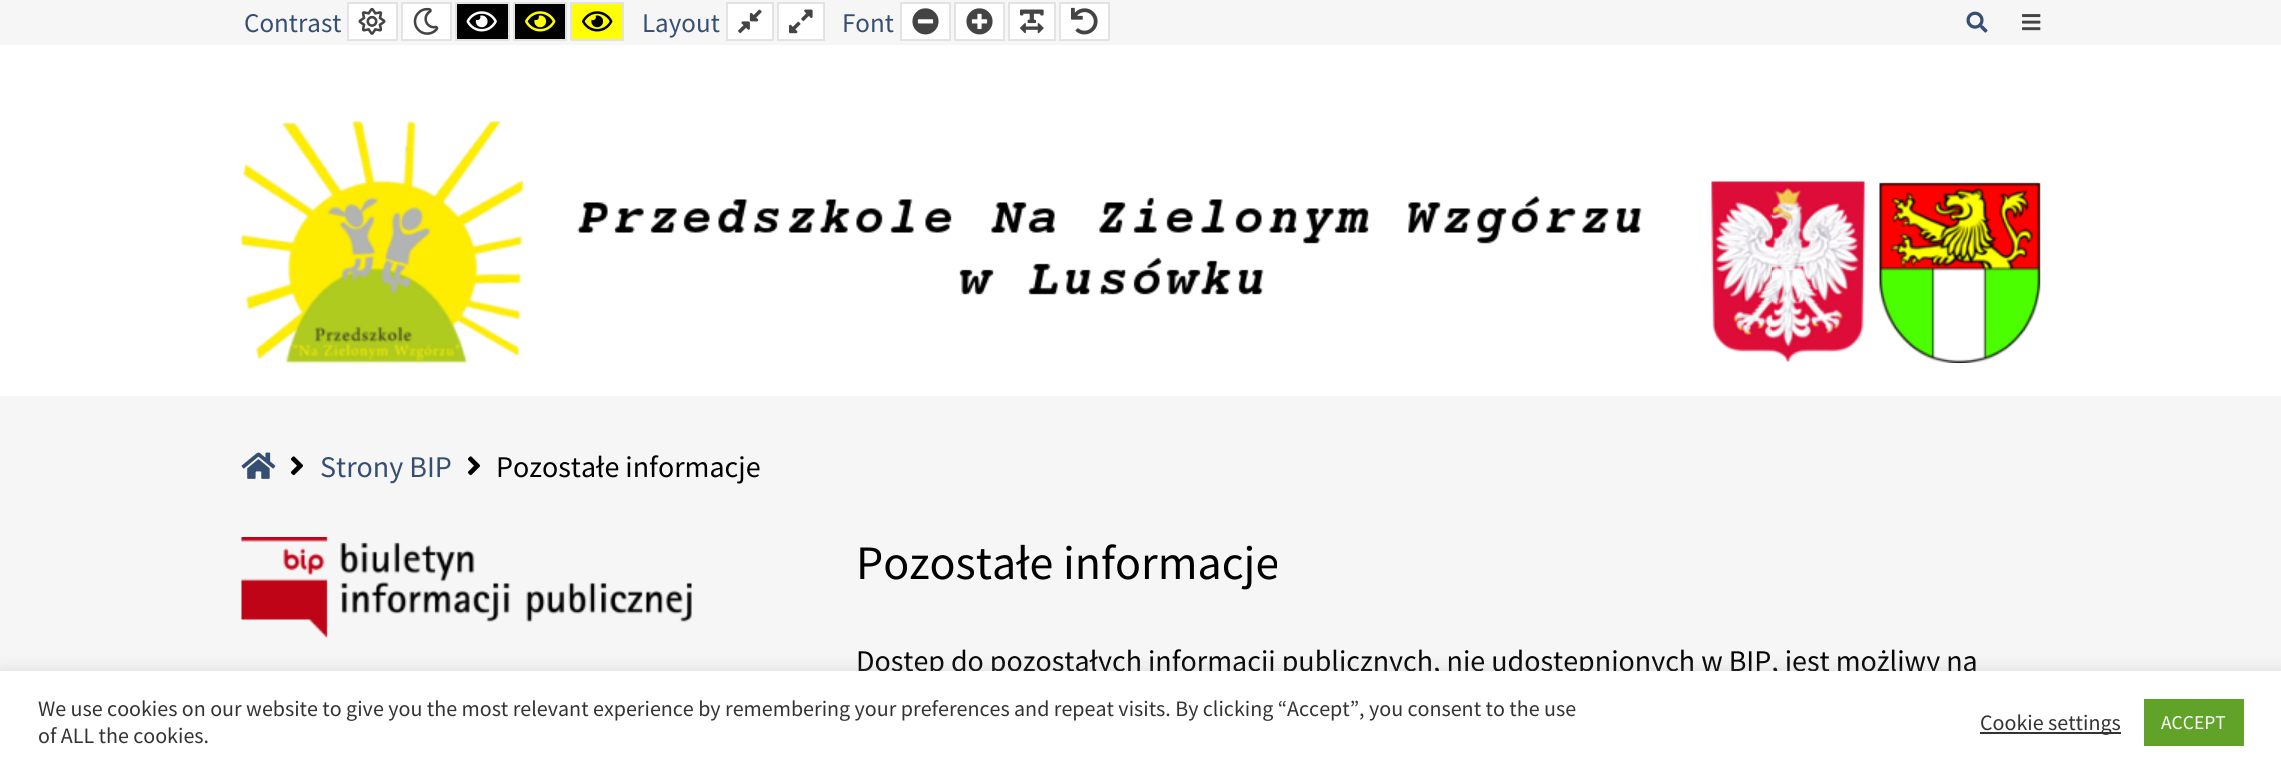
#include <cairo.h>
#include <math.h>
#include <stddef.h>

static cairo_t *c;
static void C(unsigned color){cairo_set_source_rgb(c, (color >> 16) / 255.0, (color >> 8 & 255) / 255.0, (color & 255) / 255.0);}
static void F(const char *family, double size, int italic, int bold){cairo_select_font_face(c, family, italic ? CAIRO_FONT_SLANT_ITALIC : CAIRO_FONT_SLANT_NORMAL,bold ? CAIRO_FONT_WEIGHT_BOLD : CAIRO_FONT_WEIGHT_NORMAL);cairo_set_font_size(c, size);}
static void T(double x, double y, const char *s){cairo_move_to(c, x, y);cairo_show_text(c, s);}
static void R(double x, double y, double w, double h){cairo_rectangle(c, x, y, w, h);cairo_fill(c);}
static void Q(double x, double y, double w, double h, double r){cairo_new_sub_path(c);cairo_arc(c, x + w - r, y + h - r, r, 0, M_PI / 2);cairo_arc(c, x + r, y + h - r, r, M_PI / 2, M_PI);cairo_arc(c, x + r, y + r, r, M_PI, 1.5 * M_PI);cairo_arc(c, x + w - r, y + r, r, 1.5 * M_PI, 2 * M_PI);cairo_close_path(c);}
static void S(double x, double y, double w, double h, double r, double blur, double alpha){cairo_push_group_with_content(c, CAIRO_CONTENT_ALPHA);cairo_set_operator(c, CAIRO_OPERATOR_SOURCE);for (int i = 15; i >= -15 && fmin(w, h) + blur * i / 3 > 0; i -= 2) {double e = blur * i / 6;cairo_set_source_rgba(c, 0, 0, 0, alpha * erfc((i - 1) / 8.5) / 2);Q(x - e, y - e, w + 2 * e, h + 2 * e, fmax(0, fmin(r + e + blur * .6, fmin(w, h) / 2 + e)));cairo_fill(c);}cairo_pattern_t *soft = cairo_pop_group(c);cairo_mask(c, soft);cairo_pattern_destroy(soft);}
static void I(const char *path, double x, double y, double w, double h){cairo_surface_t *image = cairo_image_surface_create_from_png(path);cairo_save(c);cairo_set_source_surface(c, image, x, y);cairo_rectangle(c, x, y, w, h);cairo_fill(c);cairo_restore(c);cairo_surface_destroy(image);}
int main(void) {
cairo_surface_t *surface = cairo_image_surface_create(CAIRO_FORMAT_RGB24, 2281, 773);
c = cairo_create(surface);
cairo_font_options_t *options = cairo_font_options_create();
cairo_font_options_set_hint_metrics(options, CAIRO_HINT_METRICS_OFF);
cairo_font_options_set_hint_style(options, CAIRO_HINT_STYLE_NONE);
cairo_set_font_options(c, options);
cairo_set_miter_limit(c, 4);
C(0xf6f6f6);
cairo_paint(c);
F("Source Sans Pro",27,0,0);
C(0x364e72);
T(244,32,"Contrast");
C(0xffffff);
cairo_rectangle(c,348,3,49,37);
cairo_fill_preserve(c);
C(0xe3e3e3);
cairo_stroke(c);
I("1.png",358,7,28,28);
C(0xffffff);
cairo_rectangle(c,402,3,49,37);
cairo_fill_preserve(c);
C(0xe3e3e3);
cairo_stroke(c);
I("2.png",413,7,26,28);
C(0x000000);
cairo_rectangle(c,456,3,53,37);
cairo_fill_preserve(c);
C(0xe3e3e3);
cairo_stroke(c);
I("3.png",466,11,31,21);
C(0x000000);
cairo_rectangle(c,514,3,52,37);
cairo_fill_preserve(c);
C(0xe3e3e3);
cairo_stroke(c);
I("4.png",525,11,31,21);
C(0xffff00);
cairo_rectangle(c,571,3,52,37);
cairo_fill_preserve(c);
C(0xe3e3e3);
cairo_stroke(c);
I("5.png",582,11,31,21);
C(0x364e72);
T(642,32,"Layout");
C(0xffffff);
cairo_rectangle(c,727,3,46,37);
cairo_fill_preserve(c);
C(0xe3e3e3);
cairo_stroke(c);
I("6.png",738,9,24,25);
C(0xffffff);
cairo_rectangle(c,778,3,46,37);
cairo_fill_preserve(c);
C(0xe3e3e3);
cairo_stroke(c);
I("7.png",789,9,24,25);
C(0x364e72);
T(842,32,"Font");
C(0xffffff);
cairo_rectangle(c,901,3,49,37);
cairo_fill_preserve(c);
C(0xe3e3e3);
cairo_stroke(c);
I("8.png",912,8,27,27);
C(0xffffff);
cairo_rectangle(c,955,3,49,37);
cairo_fill_preserve(c);
C(0xe3e3e3);
cairo_stroke(c);
I("9.png",966,8,27,27);
C(0xffffff);
cairo_rectangle(c,1009,3,46,37);
cairo_fill_preserve(c);
C(0xe3e3e3);
cairo_stroke(c);
I("10.png",1020,9,24,25);
C(0xffffff);
cairo_rectangle(c,1060,3,49,37);
cairo_fill_preserve(c);
C(0xe3e3e3);
cairo_stroke(c);
I("11.png",1071,7,27,28);
I("12.png",1966,11,22,22);
I("13.png",2022,14,19,17);
C(0xffffff);
R(0,45,2281,351);
I("14.png",241,120,1800,243);
I("15.png",241,452,35,27);
I("16.png",291,456,12,20);
F("Source Sans Pro",30,0,0);
C(0x364e72);
T(320,477,"Strony BIP");
I("16.png",468,456,12,20);
C(0x000000);
T(496,477,"Pozostałe informacje");
I("17.png",241,537,451,101);
F("Source Sans Pro",48,0,0);
T(856,579,"Pozostałe informacje");
F("Source Sans Pro",30,0,0);
T(856,671,"Dostęp do pozostałych informacji publicznych, nie udostępnionych w BIP, jest możliwy na");
C(0xacabab);
S(0,669,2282,104,0,7.5,.3);
C(0xffffff);
R(0,671,2281,102);
F("Source Sans Pro",22,0,0);
C(0x333333);
T(38,716,"We use cookies on our website to give you the most relevant experience by remembering your preferences and repeat visits. By clicking “Accept”, you consent to the use");
T(38,743,"of ALL the cookies.");
R(1980,732,141,2);
T(1980,730,"Cookie settings");
C(0x61a229);
R(2144,699,100,47);
F("Source Sans Pro",19.5,0,0);
C(0xffffff);
T(2161,729,"ACCEPT");
cairo_surface_write_to_png(surface, "o.png");
cairo_font_options_destroy(options);
cairo_destroy(c);
cairo_surface_destroy(surface);
return 0;
}
